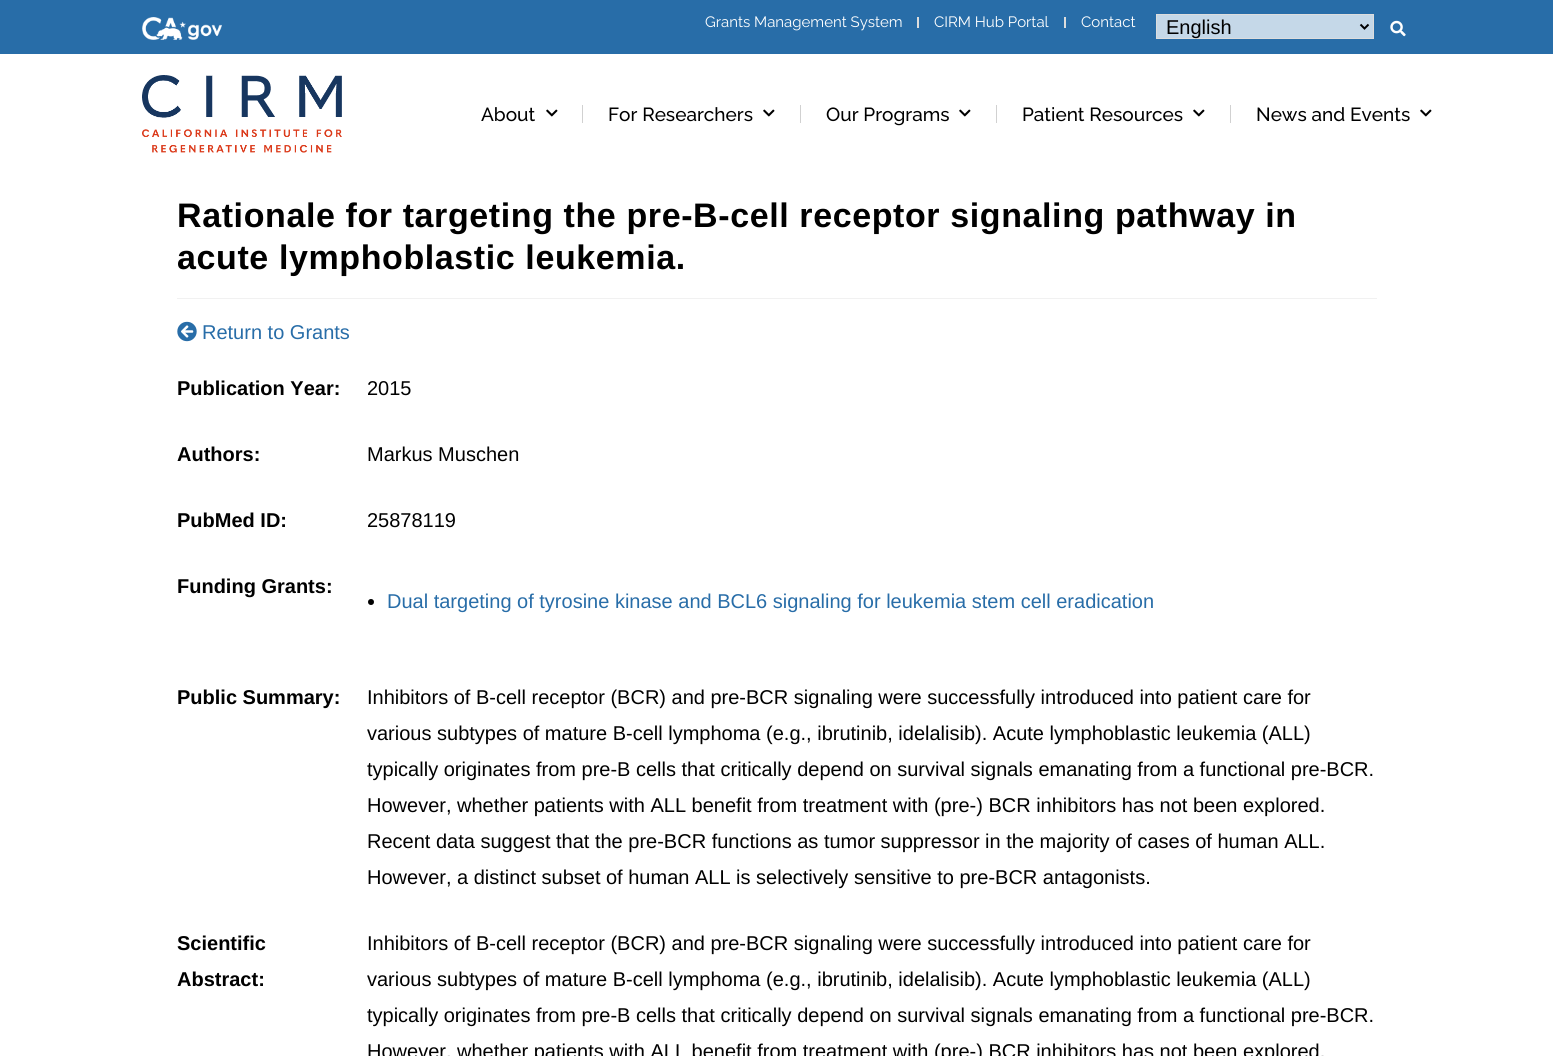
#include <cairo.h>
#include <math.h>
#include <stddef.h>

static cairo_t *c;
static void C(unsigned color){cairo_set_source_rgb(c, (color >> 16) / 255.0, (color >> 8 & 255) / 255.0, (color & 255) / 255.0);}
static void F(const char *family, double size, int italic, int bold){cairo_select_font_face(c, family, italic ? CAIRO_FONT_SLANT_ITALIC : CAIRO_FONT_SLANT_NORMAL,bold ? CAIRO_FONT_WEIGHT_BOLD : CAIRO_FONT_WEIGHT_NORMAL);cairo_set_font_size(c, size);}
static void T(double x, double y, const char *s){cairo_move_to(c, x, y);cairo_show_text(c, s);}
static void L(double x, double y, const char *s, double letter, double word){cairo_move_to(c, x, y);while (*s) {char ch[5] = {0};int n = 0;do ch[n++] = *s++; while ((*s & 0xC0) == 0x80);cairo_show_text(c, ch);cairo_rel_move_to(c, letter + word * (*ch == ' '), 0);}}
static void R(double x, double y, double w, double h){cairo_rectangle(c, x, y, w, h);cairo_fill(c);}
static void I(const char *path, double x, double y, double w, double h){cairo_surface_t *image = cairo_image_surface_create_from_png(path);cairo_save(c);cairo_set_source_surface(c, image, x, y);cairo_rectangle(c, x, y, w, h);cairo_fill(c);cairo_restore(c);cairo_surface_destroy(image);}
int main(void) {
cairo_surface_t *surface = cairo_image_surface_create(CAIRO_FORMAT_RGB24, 1553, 1056);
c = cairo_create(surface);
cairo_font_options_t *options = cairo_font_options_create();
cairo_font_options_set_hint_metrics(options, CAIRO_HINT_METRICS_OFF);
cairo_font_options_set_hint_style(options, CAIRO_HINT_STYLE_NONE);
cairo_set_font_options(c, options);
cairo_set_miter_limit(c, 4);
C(0xffffff);
cairo_paint(c);
C(0x286da8);
R(0,0,1553,54);
I("1.png",142,17,80,23);
F("Raleway",15,0,0);
C(0xffffff);
T(705,27,"Grants Management System");
C(0xdddddd);
R(917,17,2,11);
C(0xffffff);
T(934,27,"CIRM Hub Portal");
C(0xdddddd);
R(1064,17,2,11);
C(0xffffff);
T(1081,27,"Contact");
C(0xc5d8e8);
cairo_rectangle(c,1156.5,14.5,217,24);
cairo_fill_preserve(c);
C(0xdddddd);
cairo_set_line_width(c,1);
cairo_stroke(c);
cairo_new_path(c);
cairo_move_to(c,1360.5,24.5);
cairo_line_to(c,1364.5,28.5);
cairo_line_to(c,1368.5,24.5);
C(0x000000);
cairo_set_line_width(c,2);
cairo_stroke(c);
F("Liberation Sans",20,0,0);
T(1166,34,"English");
I("2.png",1390,20,16,17);
I("3.png",142,75,200,78);
F("Raleway Medium",19,0,0);
T(481,121,"About");
I("4.png",546,109,12,8);
C(0xd1d1d1);
R(582,105,1,18);
C(0x000000);
T(608,121,"For Researchers");
I("4.png",763,109,12,8);
C(0xd1d1d1);
R(800,105,1,18);
C(0x000000);
T(826,121,"Our Programs");
I("4.png",959,109,12,8);
C(0xd1d1d1);
R(996,105,1,18);
C(0x000000);
T(1022,121,"Patient Resources");
I("4.png",1193,109,12,8);
C(0xd1d1d1);
R(1230,105,1,18);
C(0x000000);
T(1256,121,"News and Events");
I("4.png",1420,109,12,8);
C(0xf1f1f1);
R(177,298,1200,1);
F("Liberation Sans",34,0,1);
C(0x000000);
L(177,227,"Rationale for targeting the pre-B-cell receptor signaling pathway in",.6,0);
L(177,269,"acute lymphoblastic leukemia.",.6,0);
I("5.png",177,321,20,21);
F("Liberation Sans",20,0,0);
C(0x286da8);
T(202,339,"Return to Grants");
F("Liberation Sans",20,0,1);
C(0x000000);
T(177,395,"Publication Year:");
F("Liberation Sans",20,0,0);
T(367,395,"2015");
F("Liberation Sans",20,0,1);
T(177,461,"Authors:");
F("Liberation Sans",20,0,0);
T(367,461,"Markus Muschen");
F("Liberation Sans",20,0,1);
T(177,527,"PubMed ID:");
F("Liberation Sans",20,0,0);
T(367,527,"25878119");
F("Liberation Sans",20,0,1);
T(177,593,"Funding Grants:");
cairo_new_path(c);
cairo_arc(c,371,602,3,0,2 * M_PI);
cairo_fill(c);
F("Liberation Sans",20,0,0);
C(0x286da8);
T(387,608,"Dual targeting of tyrosine kinase and BCL6 signaling for leukemia stem cell eradication");
F("Liberation Sans",20,0,1);
C(0x000000);
T(177,704,"Public Summary:");
F("Liberation Sans",20,0,0);
T(367,704,"Inhibitors of B-cell receptor (BCR) and pre-BCR signaling were successfully introduced into patient care for");
T(367,740,"various subtypes of mature B-cell lymphoma (e.g., ibrutinib, idelalisib). Acute lymphoblastic leukemia (ALL)");
T(367,776,"typically originates from pre-B cells that critically depend on survival signals emanating from a functional pre-BCR.");
T(367,812,"However, whether patients with ALL benefit from treatment with (pre-) BCR inhibitors has not been explored.");
T(367,848,"Recent data suggest that the pre-BCR functions as tumor suppressor in the majority of cases of human ALL.");
T(367,884,"However, a distinct subset of human ALL is selectively sensitive to pre-BCR antagonists.");
F("Liberation Sans",20,0,1);
T(177,950,"Scientific");
T(177,986,"Abstract:");
F("Liberation Sans",20,0,0);
T(367,950,"Inhibitors of B-cell receptor (BCR) and pre-BCR signaling were successfully introduced into patient care for");
T(367,986,"various subtypes of mature B-cell lymphoma (e.g., ibrutinib, idelalisib). Acute lymphoblastic leukemia (ALL)");
T(367,1022,"typically originates from pre-B cells that critically depend on survival signals emanating from a functional pre-BCR.");
T(367,1058,"However, whether patients with ALL benefit from treatment with (pre-) BCR inhibitors has not been explored.");
cairo_surface_write_to_png(surface, "o.png");
cairo_font_options_destroy(options);
cairo_destroy(c);
cairo_surface_destroy(surface);
return 0;
}
